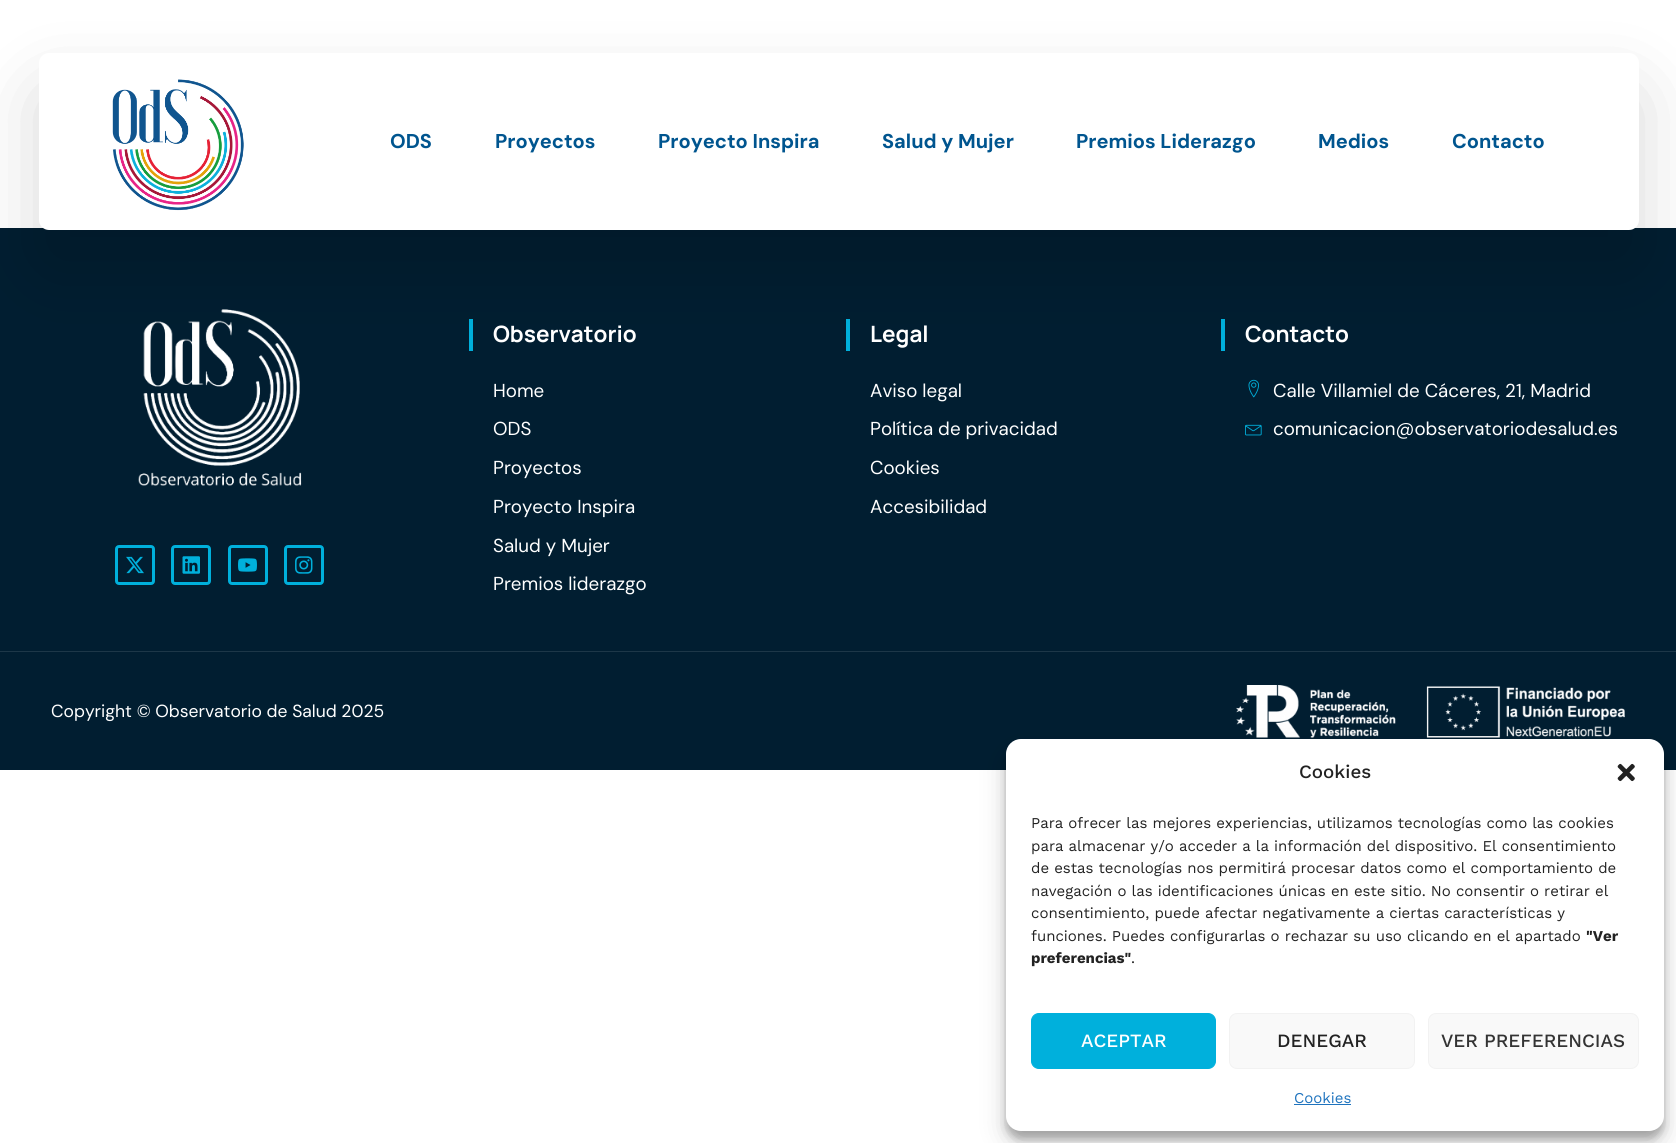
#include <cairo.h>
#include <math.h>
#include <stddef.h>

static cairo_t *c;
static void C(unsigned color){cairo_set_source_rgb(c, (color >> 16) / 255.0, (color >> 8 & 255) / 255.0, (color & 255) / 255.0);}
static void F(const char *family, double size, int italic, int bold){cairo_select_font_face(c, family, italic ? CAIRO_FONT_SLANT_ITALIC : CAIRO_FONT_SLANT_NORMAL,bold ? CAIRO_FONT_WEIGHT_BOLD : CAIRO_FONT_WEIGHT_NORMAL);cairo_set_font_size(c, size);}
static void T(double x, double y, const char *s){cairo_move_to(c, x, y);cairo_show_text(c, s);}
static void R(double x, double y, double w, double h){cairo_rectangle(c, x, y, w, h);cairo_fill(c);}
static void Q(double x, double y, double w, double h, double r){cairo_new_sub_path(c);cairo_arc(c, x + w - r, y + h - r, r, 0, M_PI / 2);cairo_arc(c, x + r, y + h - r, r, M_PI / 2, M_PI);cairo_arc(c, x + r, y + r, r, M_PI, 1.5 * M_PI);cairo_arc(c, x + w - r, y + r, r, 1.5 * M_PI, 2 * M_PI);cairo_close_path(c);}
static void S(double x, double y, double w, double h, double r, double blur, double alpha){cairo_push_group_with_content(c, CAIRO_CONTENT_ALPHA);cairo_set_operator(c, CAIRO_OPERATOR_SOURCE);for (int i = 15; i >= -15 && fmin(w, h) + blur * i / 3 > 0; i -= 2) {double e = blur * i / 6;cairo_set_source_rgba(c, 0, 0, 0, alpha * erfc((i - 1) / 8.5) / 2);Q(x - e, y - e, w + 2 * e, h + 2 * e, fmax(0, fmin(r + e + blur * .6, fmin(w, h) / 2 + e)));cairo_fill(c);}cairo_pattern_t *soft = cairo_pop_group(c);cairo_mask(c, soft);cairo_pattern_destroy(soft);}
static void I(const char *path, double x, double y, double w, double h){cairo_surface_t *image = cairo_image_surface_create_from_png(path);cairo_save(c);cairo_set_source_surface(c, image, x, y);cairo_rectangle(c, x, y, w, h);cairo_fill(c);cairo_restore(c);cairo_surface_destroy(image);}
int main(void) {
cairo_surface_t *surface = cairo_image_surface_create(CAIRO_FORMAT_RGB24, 1676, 1143);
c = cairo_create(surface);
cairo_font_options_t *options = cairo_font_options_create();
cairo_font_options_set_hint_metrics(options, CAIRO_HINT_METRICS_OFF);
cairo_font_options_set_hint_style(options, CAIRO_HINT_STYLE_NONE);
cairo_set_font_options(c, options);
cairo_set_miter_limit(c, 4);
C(0xffffff);
cairo_paint(c);
C(0x011e31);
R(0,228,1676,423);
I("2.png",138,309,164,177);
C(0x00b0dc);
R(469,319,4,32);
R(846,319,4,32);
R(1221,319,4,32);
I("7.png",1248,379,11,19);
C(0x000000);
S(39,90,1600,178,10,37.5,.15);
C(0xffffff);
Q(39,53,1600,177,10);
cairo_fill(c);
I("1.png",112,79,132,132);
F("DM Sans",20,0,1);
C(0x00558f);
T(390,148,"ODS");
T(495,148,"Proyectos");
T(658,148,"Proyecto Inspira");
T(882,148,"Salud y Mujer");
T(1076,148,"Premios Liderazgo");
T(1318,148,"Medios");
T(1452,148,"Contacto");
Q(116.5,546.5,37,37,2.5);
C(0x00b0dc);
cairo_set_line_width(c,3);
cairo_stroke(c);
I("3.png",126,556,18,18);
Q(172.5,546.5,37,37,2.5);
cairo_stroke(c);
I("4.png",182,556,18,18);
Q(229.5,546.5,37,37,2.5);
cairo_stroke(c);
I("5.png",238,558,19,14);
Q(285.5,546.5,37,37,2.5);
cairo_stroke(c);
I("6.png",295,556,18,18);
F("Manrope",22.5,0,1);
C(0xffffff);
T(493,342,"Observatorio");
F("DM Sans",18.75,0,0);
T(493,397,"Home");
T(493,435,"ODS");
T(493,474,"Proyectos");
T(493,513,"Proyecto Inspira");
T(493,552,"Salud y Mujer");
T(493,590,"Premios liderazgo");
F("Manrope",22.5,0,1);
T(870,342,"Legal");
F("DM Sans",18.75,0,0);
T(870,397,"Aviso legal");
T(870,435,"Política de privacidad");
T(870,474,"Cookies");
T(870,513,"Accesibilidad");
F("Manrope",22.5,0,1);
T(1245,342,"Contacto");
F("DM Sans",18.75,0,0);
T(1273,397,"Calle Villamiel de Cáceres, 21, Madrid");
I("8.png",1245,424,17,12);
T(1273,435,"comunicacion@observatoriodesalud.es");
C(0x011e31);
R(0,652,1676,118);
C(0x1d3748);
R(0,651,1676,1);
F("DM Sans",17.5,0,0);
C(0xffffff);
T(51,717,"Copyright © Observatorio de Salud 2025");
I("9.png",1236,685,389,53);
C(0x000000);
S(1006,746,658,393,15,4,.23);
S(1006,751,658,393,15,12.5,.19);
C(0xffffff);
Q(1006,739,658,392,15);
cairo_fill(c);
F("Work Sans Medium",18.75,0,0);
C(0x222222);
T(1299,778,"Cookies");
I("10.png",1617,763,18,19);
F("Work Sans",15,0,0);
T(1031,828,"Para ofrecer las mejores experiencias, utilizamos tecnologías como las cookies");
T(1031,851,"para almacenar y/o acceder a la información del dispositivo. El consentimiento");
T(1031,873,"de estas tecnologías nos permitirá procesar datos como el comportamiento de");
T(1031,896,"navegación o las identificaciones únicas en este sitio. No consentir o retirar el");
T(1031,918,"consentimiento, puede afectar negativamente a ciertas características y");
T(1031,941,"funciones. Puedes configurarlas o rechazar su uso clicando en el apartado");
F("Work Sans",15,0,1);
T(1586,941,"\"Ver");
T(1031,963,"preferencias\"");
F("Work Sans",15,0,0);
T(1131,963,".");
C(0x00b0dc);
Q(1031.5,1013.5,184,55,7.5);
cairo_fill_preserve(c);
cairo_set_line_width(c,1);
cairo_stroke(c);
F("Work Sans Medium",18.75,0,0);
C(0xffffff);
T(1081,1047,"ACEPTAR");
C(0xf9f9f9);
Q(1229.5,1013.5,185,55,7.5);
cairo_fill_preserve(c);
C(0xf2f2f2);
cairo_stroke(c);
C(0x222222);
T(1277,1047,"DENEGAR");
C(0xf9f9f9);
Q(1428.5,1013.5,210,55,7.5);
cairo_fill_preserve(c);
C(0xf2f2f2);
cairo_stroke(c);
C(0x333333);
T(1441,1047,"VER PREFERENCIAS");
F("Work Sans",15,0,0);
C(0x1e73be);
T(1294,1103,"Cookies");
R(1294,1104,57,1);
cairo_surface_write_to_png(surface, "o.png");
cairo_font_options_destroy(options);
cairo_destroy(c);
cairo_surface_destroy(surface);
return 0;
}
